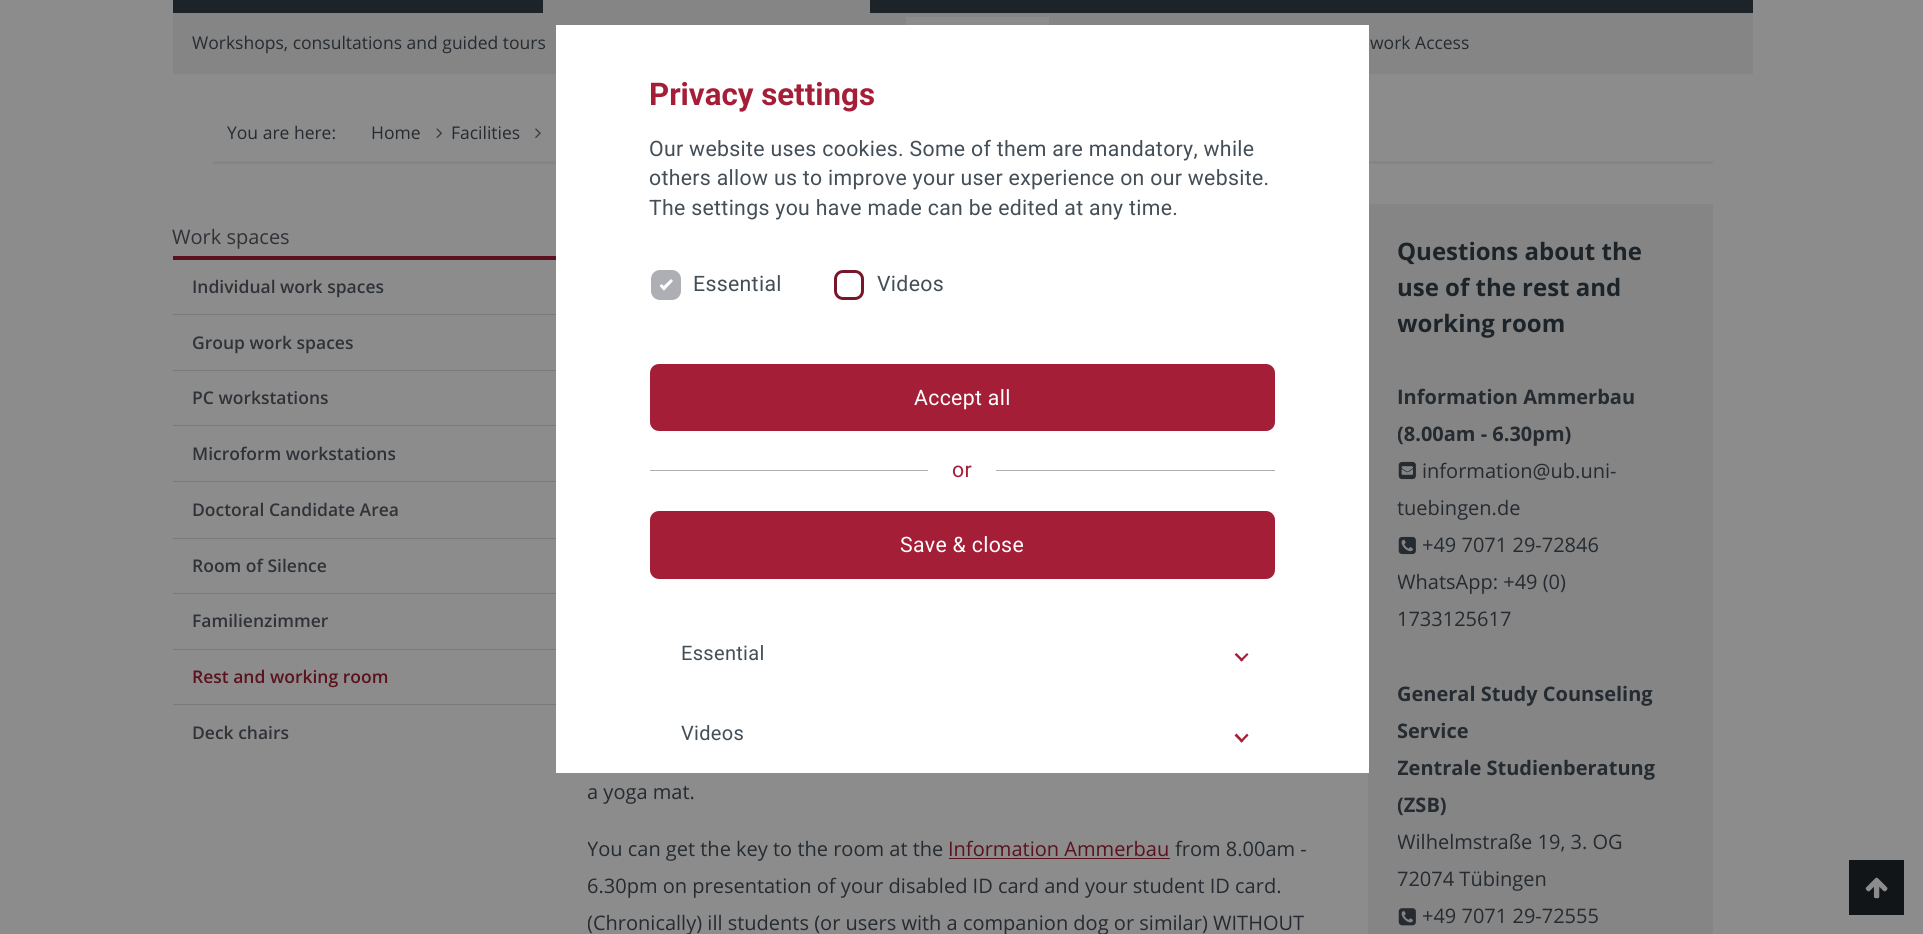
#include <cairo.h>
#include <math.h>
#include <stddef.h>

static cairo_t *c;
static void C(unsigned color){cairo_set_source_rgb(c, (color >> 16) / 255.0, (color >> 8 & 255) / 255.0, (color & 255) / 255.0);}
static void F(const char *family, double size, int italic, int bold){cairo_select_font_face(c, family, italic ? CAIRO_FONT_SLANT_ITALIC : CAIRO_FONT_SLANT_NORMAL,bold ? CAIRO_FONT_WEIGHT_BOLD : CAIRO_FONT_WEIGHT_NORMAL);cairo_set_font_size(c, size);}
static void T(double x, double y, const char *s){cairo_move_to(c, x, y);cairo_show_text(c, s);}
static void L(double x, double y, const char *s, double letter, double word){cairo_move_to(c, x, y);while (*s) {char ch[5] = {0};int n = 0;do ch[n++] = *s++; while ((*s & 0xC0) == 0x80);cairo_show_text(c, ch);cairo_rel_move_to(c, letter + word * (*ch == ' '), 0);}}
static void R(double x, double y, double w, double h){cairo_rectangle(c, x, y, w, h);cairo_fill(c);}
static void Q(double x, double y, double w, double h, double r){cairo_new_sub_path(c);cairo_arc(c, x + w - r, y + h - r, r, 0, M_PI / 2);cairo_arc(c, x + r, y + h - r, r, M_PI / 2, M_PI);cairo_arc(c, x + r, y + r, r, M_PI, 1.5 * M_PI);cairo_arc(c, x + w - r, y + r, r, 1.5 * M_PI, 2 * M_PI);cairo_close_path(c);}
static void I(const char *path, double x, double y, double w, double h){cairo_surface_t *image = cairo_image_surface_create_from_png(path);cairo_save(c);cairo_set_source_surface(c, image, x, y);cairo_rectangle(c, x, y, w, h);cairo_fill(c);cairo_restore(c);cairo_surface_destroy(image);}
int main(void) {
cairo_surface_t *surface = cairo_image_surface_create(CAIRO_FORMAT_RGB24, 1923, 934);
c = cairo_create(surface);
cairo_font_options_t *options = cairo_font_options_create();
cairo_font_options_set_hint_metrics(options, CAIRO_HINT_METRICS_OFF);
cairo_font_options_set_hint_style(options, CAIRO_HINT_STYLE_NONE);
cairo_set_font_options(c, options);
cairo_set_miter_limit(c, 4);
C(0x8c8c8c);
cairo_paint(c);
C(0x1c2429);
R(173,0,1580,13);
C(0x858585);
R(543,0,327,13);
R(173,13,1580,61);
C(0x8c8c8c);
R(906,17,143,8);
F("Open Sans",17.5,0,0);
C(0x252b30);
T(192,49,"Workshops, consultations and guided tours");
T(1370,49,"work Access");
C(0x858585);
R(213,161,1500,3);
C(0x252b30);
T(227,139,"You are here:");
T(371,139,"Home");
I("1.png",436,128,6,11);
T(451,139,"Facilities");
I("2.png",535,128,6,11);
C(0x5b111e);
R(173,256,385,4);
F("Open Sans",20,0,0);
C(0x2f3338);
T(172,244,"Work spaces");
C(0x7a7a7a);
R(173,314,385,1);
F("Open Sans SemiBold",17.5,0,0);
C(0x2f3338);
T(192,293,"Individual work spaces");
C(0x7a7a7a);
R(173,370,385,1);
C(0x2f3338);
T(192,349,"Group work spaces");
C(0x7a7a7a);
R(173,425,385,1);
C(0x2f3338);
T(192,404,"PC workstations");
C(0x7a7a7a);
R(173,481,385,1);
C(0x2f3338);
T(192,460,"Microform workstations");
C(0x7a7a7a);
R(173,538,385,1);
C(0x2f3338);
T(192,516,"Doctoral Candidate Area");
C(0x7a7a7a);
R(173,593,385,1);
C(0x2f3338);
T(192,572,"Room of Silence");
C(0x7a7a7a);
R(173,649,385,1);
C(0x2f3338);
T(192,627,"Familienzimmer");
C(0x7a7a7a);
R(173,704,385,1);
C(0x5b111e);
T(192,683,"Rest and working room");
C(0x2f3338);
T(192,739,"Deck chairs");
F("Open Sans",20,0,0);
C(0x252b30);
T(587,799,"a yoga mat.");
cairo_save(c);
cairo_rectangle(c,588,204,750,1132);
cairo_clip(c);
T(587,856,"You can get the key to the room at the");
cairo_restore(c);
C(0x5b111e);
T(948,856,"Information Ammerbau");
R(949,858,221,1);
C(0x252b30);
T(1175,856,"from 8.00am -");
T(587,893,"6.30pm on presentation of your disabled ID card and your student ID card.");
cairo_save(c);
cairo_rectangle(c,588,204,750,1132);
cairo_clip(c);
T(587,930,"(Chronically) ill students (or users with a companion dog or similar) WITHOUT");
cairo_restore(c);
C(0x858585);
R(1368,204,345,730);
F("Open Sans",24,0,1);
C(0x1c2429);
T(1397,260,"Questions about the");
T(1397,296,"use of the rest and");
cairo_save(c);
cairo_rectangle(c,1398,234,285,107);
cairo_clip(c);
T(1397,332,"working room");
cairo_restore(c);
F("Open Sans",20,0,1);
C(0x252b30);
T(1397,404,"Information Ammerbau");
cairo_save(c);
cairo_rectangle(c,1398,341,285,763);
cairo_clip(c);
T(1397,441,"(8.00am - 6.30pm)");
cairo_restore(c);
I("3.png",1398,461,18,19);
F("Open Sans",20,0,0);
T(1422,478,"information@ub.uni-");
T(1397,515,"tuebingen.de");
I("4.png",1398,536,18,19);
T(1422,552,"+49 7071 29-72846");
cairo_save(c);
cairo_rectangle(c,1398,341,285,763);
cairo_clip(c);
T(1397,589,"WhatsApp: +49 (0)");
cairo_restore(c);
T(1397,626,"1733125617");
F("Open Sans",20,0,1);
T(1397,701,"General Study Counseling");
cairo_save(c);
cairo_rectangle(c,1398,341,285,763);
cairo_clip(c);
T(1397,738,"Service");
T(1397,775,"Zentrale Studienberatung");
T(1397,812,"(ZSB)");
F("Open Sans",20,0,0);
T(1397,849,"Wilhelmstraße 19, 3. OG");
cairo_restore(c);
F("Open Sans",20,0,0);
T(1397,886,"72074 Tübingen");
I("5.png",1398,908,18,18);
T(1422,923,"+49 7071 29-72555");
C(0x111518);
R(1849,860,55,55);
I("6.png",1865,877,23,22);
C(0xffffff);
R(556,25,813,748);
F("Roboto",31.25,0,1);
C(0xa51e37);
T(649,105,"Privacy settings");
F("Roboto",21.25,0,0);
C(0x444e57);
L(649,156,"Our website uses cookies. Some of them are mandatory, while",.32,0);
L(649,185,"others allow us to improve your user experience on our website.",.32,0);
L(649,215,"The settings you have made can be edited at any time.",.32,0);
C(0xadafb5);
Q(652.5,271.5,27,27,7.5);
cairo_fill_preserve(c);
cairo_set_line_width(c,3);
cairo_stroke(c);
C(0x444e57);
L(693,291,"Essential",.32,0);
C(0xffffff);
cairo_new_path(c);
cairo_move_to(c,661.5,288);
cairo_line_to(c,671,279);
cairo_line_to(c,673,281);
cairo_line_to(c,664,290.5);
cairo_close_path(c);
cairo_fill(c);
cairo_new_path(c);
cairo_move_to(c,659.5,286);
cairo_line_to(c,661.5,284);
cairo_line_to(c,666,288);
cairo_line_to(c,664,290.5);
cairo_close_path(c);
cairo_fill(c);
Q(835.5,271.5,27,27,7.5);
C(0x7a1629);
cairo_stroke(c);
C(0x444e57);
L(877,291,"Videos",.32,0);
C(0xa51e37);
Q(650,364,625,67,9);
cairo_fill(c);
C(0xffffff);
L(914,405,"Accept all",.32,0);
C(0xadafb5);
R(650,470,278,1);
C(0xa51e37);
L(952,477,"or",.32,0);
C(0xadafb5);
R(996,470,279,1);
C(0xa51e37);
Q(650,511,625,68,9);
cairo_fill(c);
C(0xffffff);
L(900,552,"Save & close",.32,0);
F("Roboto",20,0,0);
C(0x444e57);
L(681,660,"Essential",.32,0);
C(0xa51e37);
cairo_new_path(c);
cairo_move_to(c,1247,653);
cairo_line_to(c,1248.5,654.5);
cairo_line_to(c,1241.5,661.5);
cairo_line_to(c,1240,660);
cairo_close_path(c);
cairo_fill(c);
cairo_new_path(c);
cairo_move_to(c,1236.5,653);
cairo_line_to(c,1243.5,660);
cairo_line_to(c,1241.5,661.5);
cairo_line_to(c,1234.5,654.5);
cairo_close_path(c);
cairo_fill(c);
C(0x444e57);
L(681,740,"Videos",.32,0);
C(0xa51e37);
cairo_new_path(c);
cairo_move_to(c,1247,733.5);
cairo_line_to(c,1248.5,735.5);
cairo_line_to(c,1241.5,742.5);
cairo_line_to(c,1240,741);
cairo_close_path(c);
cairo_fill(c);
cairo_new_path(c);
cairo_move_to(c,1236.5,733.5);
cairo_line_to(c,1243.5,741);
cairo_line_to(c,1241.5,742.5);
cairo_line_to(c,1234.5,735.5);
cairo_close_path(c);
cairo_fill(c);
cairo_surface_write_to_png(surface, "o.png");
cairo_font_options_destroy(options);
cairo_destroy(c);
cairo_surface_destroy(surface);
return 0;
}
